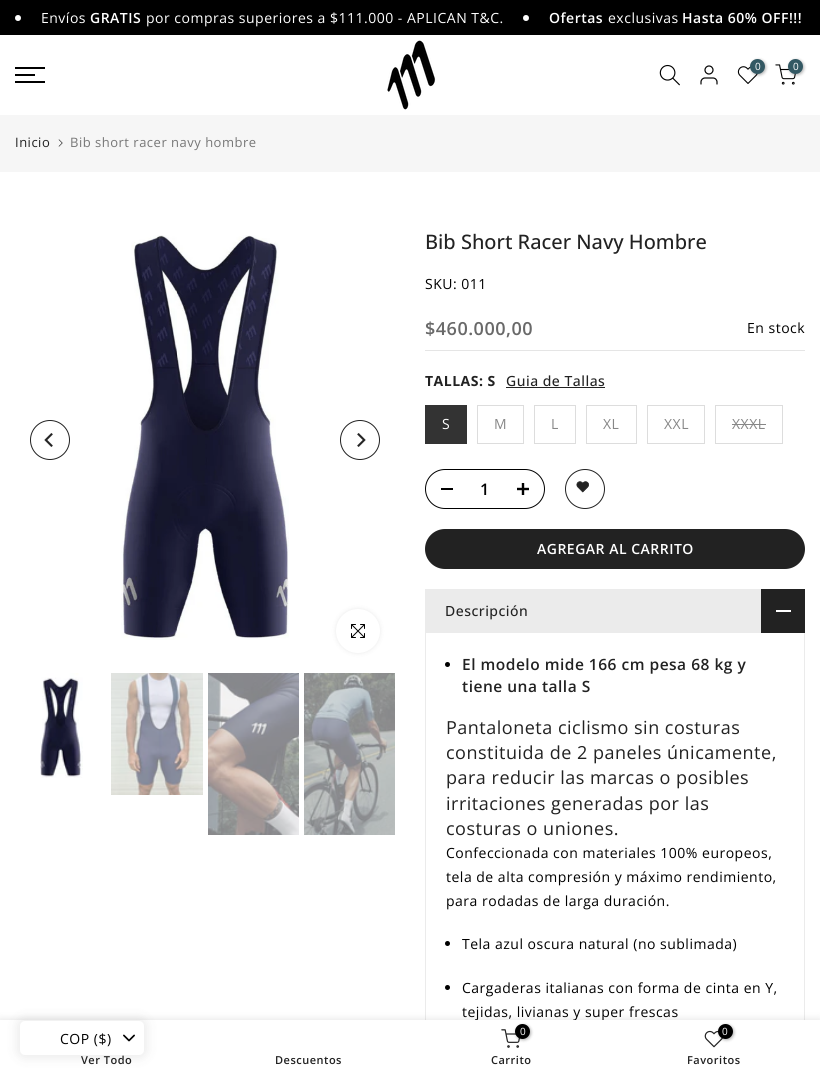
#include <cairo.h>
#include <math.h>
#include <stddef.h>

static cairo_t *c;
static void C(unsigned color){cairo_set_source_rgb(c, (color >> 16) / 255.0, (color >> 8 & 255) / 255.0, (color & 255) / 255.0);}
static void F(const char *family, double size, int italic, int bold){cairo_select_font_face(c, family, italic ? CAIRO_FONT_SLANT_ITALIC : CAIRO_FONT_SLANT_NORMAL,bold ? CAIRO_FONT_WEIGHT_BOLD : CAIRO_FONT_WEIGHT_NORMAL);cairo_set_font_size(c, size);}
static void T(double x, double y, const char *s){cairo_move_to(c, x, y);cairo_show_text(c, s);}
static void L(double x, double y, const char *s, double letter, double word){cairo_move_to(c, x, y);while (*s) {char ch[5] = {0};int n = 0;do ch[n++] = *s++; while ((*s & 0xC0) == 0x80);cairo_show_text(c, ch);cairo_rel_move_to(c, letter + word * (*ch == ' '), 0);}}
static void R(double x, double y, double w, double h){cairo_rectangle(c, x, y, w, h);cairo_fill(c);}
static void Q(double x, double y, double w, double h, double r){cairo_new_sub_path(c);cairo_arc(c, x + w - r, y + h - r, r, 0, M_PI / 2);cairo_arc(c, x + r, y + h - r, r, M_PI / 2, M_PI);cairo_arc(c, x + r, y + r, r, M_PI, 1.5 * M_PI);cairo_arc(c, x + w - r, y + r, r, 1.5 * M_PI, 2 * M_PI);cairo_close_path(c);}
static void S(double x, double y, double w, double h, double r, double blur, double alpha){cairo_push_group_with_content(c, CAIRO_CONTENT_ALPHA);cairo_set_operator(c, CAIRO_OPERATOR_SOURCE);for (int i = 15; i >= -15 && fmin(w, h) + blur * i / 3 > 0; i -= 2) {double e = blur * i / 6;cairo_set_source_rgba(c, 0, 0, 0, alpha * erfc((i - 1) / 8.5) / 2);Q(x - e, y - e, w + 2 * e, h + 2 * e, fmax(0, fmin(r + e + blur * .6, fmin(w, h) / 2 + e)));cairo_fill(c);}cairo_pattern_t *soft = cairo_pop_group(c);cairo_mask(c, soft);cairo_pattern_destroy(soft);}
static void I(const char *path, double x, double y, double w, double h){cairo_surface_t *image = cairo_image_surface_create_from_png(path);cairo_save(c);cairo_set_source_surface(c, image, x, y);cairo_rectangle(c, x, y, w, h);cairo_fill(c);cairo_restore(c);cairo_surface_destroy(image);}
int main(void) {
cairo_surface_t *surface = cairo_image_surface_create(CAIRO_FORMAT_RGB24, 820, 1075);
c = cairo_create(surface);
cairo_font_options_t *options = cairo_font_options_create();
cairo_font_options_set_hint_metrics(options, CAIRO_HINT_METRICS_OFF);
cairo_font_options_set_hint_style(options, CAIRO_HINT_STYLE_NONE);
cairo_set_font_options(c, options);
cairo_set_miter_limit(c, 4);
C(0xffffff);
cairo_paint(c);
C(0x000000);
R(0,0,820,35);
C(0xffffff);
cairo_arc(c,18,18,3,0,2 * M_PI);
cairo_fill(c);
F("Open Sans",14,0,0);
L(41,23,"Envíos",.5,0);
F("Open Sans SemiBold",14,0,0);
L(90,23,"GRATIS",.5,0);
F("Open Sans",14,0,0);
L(146,23,"por compras superiores a $111.000 - APLICAN T&C.",.5,0);
cairo_new_path(c);
cairo_arc(c,526,18,3,0,2 * M_PI);
cairo_fill(c);
F("Open Sans SemiBold",14,0,0);
L(549,23,"Ofertas",.5,0);
F("Open Sans",14,0,0);
L(608,23,"exclusivas",.5,0);
F("Open Sans SemiBold",14,0,0);
L(682,23,"Hasta 60% OFF!!!",.5,0);
C(0x000000);
R(15,67,30,2);
R(15,74,20,2);
R(15,81,30,2);
I("1.png",387,40,49,70);
I("2.png",659,64,21,22);
I("3.png",700,65,18,20);
I("4.png",737,66,21,18);
C(0x000000);
S(751,60,15,15,7.5,1.5,.3);
C(0x335863);
cairo_arc(c,757.5,66.5,7.5,0,2 * M_PI);
cairo_fill(c);
F("Open Sans",10,0,0);
C(0xffffff);
T(755,70,"0");
I("5.png",775,64,21,21);
C(0x000000);
S(789,60,15,15,7.5,1.5,.3);
C(0x335863);
cairo_arc(c,795.5,66.5,7.5,0,2 * M_PI);
cairo_fill(c);
C(0xffffff);
T(793,70,"0");
C(0xf6f6f6);
R(0,115,820,57);
F("Open Sans",13,0,0);
C(0x222222);
L(15,147,"Inicio",.5,0);
I("6.png",58,139,5,8);
C(0x777777);
L(70,147,"Bib short racer navy hombre",.5,0);
cairo_new_path(c);
cairo_arc(c,50,440,19.5,0,2 * M_PI);
C(0x222222);
cairo_set_line_width(c,1);
cairo_stroke(c);
I("7.png",44,433,9,14);
I("8.png",121,235,168,405);
cairo_arc(c,360,440,19.5,0,2 * M_PI);
cairo_stroke(c);
I("9.png",357,433,9,14);
C(0x000000);
S(336,609,44,44,22,2.5,.09);
C(0xffffff);
cairo_arc(c,358,631,22,0,2 * M_PI);
cairo_fill(c);
I("10.png",351,624,14,14);
I("11.png",40,673,43,105);
I("12.png",111,673,92,122);
I("13.png",208,673,91,162);
I("14.png",304,673,91,162);
F("Open Sans Medium",20,0,0);
C(0x222222);
T(425,249,"Bib Short Racer Navy Hombre");
F("Open Sans",14,0,0);
C(0x000000);
L(425,289,"SKU: 011",.5,0);
C(0xe5e5e5);
R(425,350,380,1);
F("Open Sans SemiBold",18,0,0);
C(0x696969);
L(425,335,"$460.000,00",.5,0);
F("Open Sans",14,0,0);
C(0x000000);
L(747,333,"En stock",.5,0);
F("Open Sans",14,0,1);
C(0x222222);
L(425,386,"TALLAS: S",.5,0);
F("Open Sans Medium",14,0,0);
L(506,386,"Guia de Tallas",.5,0);
R(506,387,99,1);
C(0x333333);
R(425,405,42,39);
F("Open Sans",14,0,0);
C(0xffffff);
L(442,429,"S",.5,0);
cairo_rectangle(c,477.5,405.5,46,38);
C(0xdddddd);
cairo_stroke(c);
C(0x878787);
L(494,429,"M",.5,0);
cairo_rectangle(c,534.5,405.5,41,38);
C(0xdddddd);
cairo_stroke(c);
C(0x878787);
L(551,429,"L",.5,0);
cairo_rectangle(c,586.5,405.5,50,38);
C(0xdddddd);
cairo_stroke(c);
C(0x878787);
L(603,429,"XL",.5,0);
cairo_rectangle(c,647.5,405.5,57,38);
C(0xdddddd);
cairo_stroke(c);
C(0x878787);
L(664,429,"XXL",.5,0);
cairo_rectangle(c,715.5,405.5,67,38);
C(0xdddddd);
cairo_stroke(c);
C(0x878787);
L(732,429,"XXXL",.5,0);
R(732,424,34,1);
Q(425.5,469.5,119,39,19.5);
C(0x000000);
cairo_stroke(c);
R(441,488,12,2);
F("Open Sans SemiBold",16,0,0);
T(480,495,"1");
I("15.png",517,483,12,12);
cairo_arc(c,585,489,19.5,0,2 * M_PI);
C(0x222222);
cairo_stroke(c);
I("16.png",576,481,13,12);
Q(425,529,380,40,20);
cairo_fill(c);
F("Open Sans SemiBold",14,0,0);
C(0xffffff);
L(537,554,"AGREGAR AL CARRITO",.5,0);
C(0xebebeb);
R(425,589,336,44);
F("Open Sans Medium",14,0,0);
C(0x222222);
L(445,616,"Descripción",.5,0);
R(761,589,44,44);
C(0xffffff);
R(776,610,15,2);
C(0xebebeb);
cairo_new_path(c);
cairo_move_to(c,805,633);
cairo_line_to(c,805,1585);
cairo_line_to(c,804,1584);
cairo_line_to(c,804,633);
cairo_close_path(c);
cairo_fill(c);
cairo_new_path(c);
cairo_move_to(c,425,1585);
cairo_line_to(c,425,633);
cairo_line_to(c,426,633);
cairo_line_to(c,426,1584);
cairo_close_path(c);
cairo_fill(c);
C(0x000000);
cairo_arc(c,447.5,664.5,2.5,0,2 * M_PI);
cairo_fill(c);
F("Open Sans SemiBold",15.5,0,0);
C(0x222222);
L(462,670,"El modelo mide 166 cm pesa 68 kg y",.5,0);
L(462,692,"tiene una talla S",.5,0);
F("Open Sans",18,0,0);
L(446,734,"Pantaloneta ciclismo sin costuras",.5,0);
L(446,759,"constituida de 2 paneles únicamente,",.5,0);
L(446,784,"para reducir las marcas o posibles",.5,0);
L(446,810,"irritaciones generadas por las",.5,0);
L(446,835,"costuras o uniones.",.5,0);
F("Open Sans",14,0,0);
C(0x000000);
L(446,858,"Confeccionada con materiales 100% europeos,",.5,0);
L(446,882,"tela de alta compresión y máximo rendimiento,",.5,0);
L(446,906,"para rodadas de larga duración.",.5,0);
cairo_new_path(c);
cairo_arc(c,447.5,943.5,2.5,0,2 * M_PI);
cairo_fill(c);
L(462,949,"Tela azul oscura natural (no sublimada)",.5,0);
cairo_new_path(c);
cairo_arc(c,447.5,987.5,2.5,0,2 * M_PI);
cairo_fill(c);
L(462,993,"Cargaderas italianas con forma de cinta en Y,",.5,0);
L(462,1017,"tejidas, livianas y super frescas",.5,0);
C(0x000000);
S(0,1020,820,55,0,4.5,.12);
C(0xffffff);
R(0,1020,820,55);
F("Open Sans SemiBold",11,0,0);
C(0x222222);
L(81,1064,"Ver Todo",.5,0);
L(275,1064,"Descuentos",.5,0);
I("17.png",501,1029,19,19);
C(0x000000);
S(516,1025,15,15,7.5,1.5,.3);
C(0x000000);
cairo_arc(c,522.5,1031.5,7.5,0,2 * M_PI);
cairo_fill(c);
F("Open Sans",10,0,0);
C(0xffffff);
T(520,1035,"0");
F("Open Sans SemiBold",11,0,0);
C(0x222222);
L(491,1064,"Carrito",.5,0);
I("18.png",704,1030,19,18);
C(0x000000);
S(719,1025,15,15,7.5,1.5,.3);
C(0x000000);
cairo_arc(c,725.5,1031.5,7.5,0,2 * M_PI);
cairo_fill(c);
F("Open Sans",10,0,0);
C(0xffffff);
T(722,1035,"0");
F("Open Sans SemiBold",11,0,0);
C(0x222222);
L(687,1064,"Favoritos",.5,0);
C(0x3c3c3c);
S(16,1017,132,42,9,5,.09);
C(0xffffff);
Q(20,1021,124,34,5);
cairo_fill(c);
F("Open Sans",14,0,0);
C(0x000000);
L(60,1044,"COP ($)",.5,0);
I("19.png",123,1034,12,8);
cairo_surface_write_to_png(surface, "o.png");
cairo_font_options_destroy(options);
cairo_destroy(c);
cairo_surface_destroy(surface);
return 0;
}
